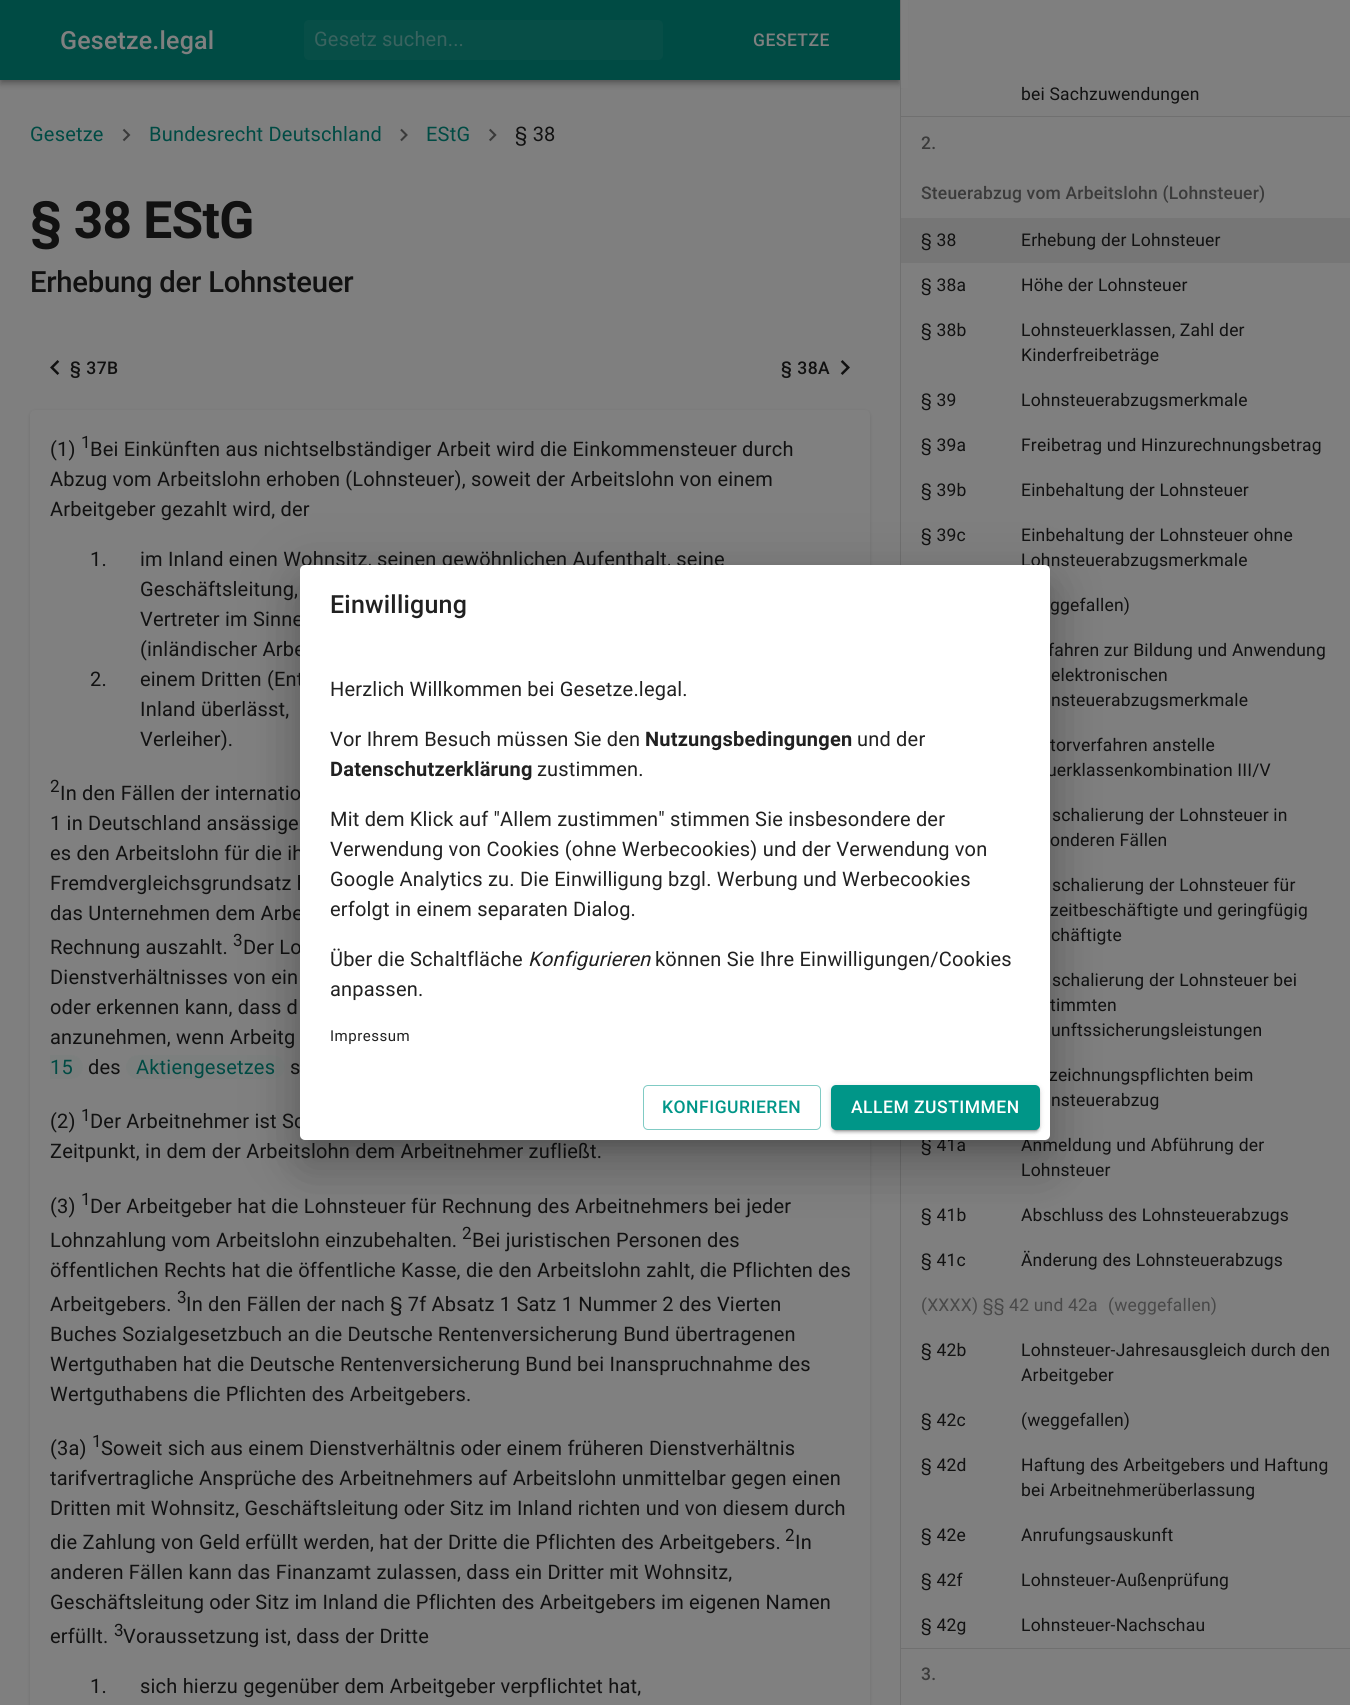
#include <cairo.h>
#include <math.h>
#include <stddef.h>

static cairo_t *c;
static void C(unsigned color){cairo_set_source_rgb(c, (color >> 16) / 255.0, (color >> 8 & 255) / 255.0, (color & 255) / 255.0);}
static void F(const char *family, double size, int italic, int bold){cairo_select_font_face(c, family, italic ? CAIRO_FONT_SLANT_ITALIC : CAIRO_FONT_SLANT_NORMAL,bold ? CAIRO_FONT_WEIGHT_BOLD : CAIRO_FONT_WEIGHT_NORMAL);cairo_set_font_size(c, size);}
static void L(double x, double y, const char *s, double letter, double word){cairo_move_to(c, x, y);while (*s) {char ch[5] = {0};int n = 0;do ch[n++] = *s++; while ((*s & 0xC0) == 0x80);cairo_show_text(c, ch);cairo_rel_move_to(c, letter + word * (*ch == ' '), 0);}}
static void R(double x, double y, double w, double h){cairo_rectangle(c, x, y, w, h);cairo_fill(c);}
static void Q(double x, double y, double w, double h, double r){cairo_new_sub_path(c);cairo_arc(c, x + w - r, y + h - r, r, 0, M_PI / 2);cairo_arc(c, x + r, y + h - r, r, M_PI / 2, M_PI);cairo_arc(c, x + r, y + r, r, M_PI, 1.5 * M_PI);cairo_arc(c, x + w - r, y + r, r, 1.5 * M_PI, 2 * M_PI);cairo_close_path(c);}
static void S(double x, double y, double w, double h, double r, double blur, double alpha){cairo_push_group_with_content(c, CAIRO_CONTENT_ALPHA);cairo_set_operator(c, CAIRO_OPERATOR_SOURCE);for (int i = 15; i >= -15 && fmin(w, h) + blur * i / 3 > 0; i -= 2) {double e = blur * i / 6;cairo_set_source_rgba(c, 0, 0, 0, alpha * erfc((i - 1) / 8.5) / 2);Q(x - e, y - e, w + 2 * e, h + 2 * e, fmax(0, fmin(r + e + blur * .6, fmin(w, h) / 2 + e)));cairo_fill(c);}cairo_pattern_t *soft = cairo_pop_group(c);cairo_mask(c, soft);cairo_pattern_destroy(soft);}
static void I(const char *path, double x, double y, double w, double h){cairo_surface_t *image = cairo_image_surface_create_from_png(path);cairo_save(c);cairo_set_source_surface(c, image, x, y);cairo_rectangle(c, x, y, w, h);cairo_fill(c);cairo_restore(c);cairo_surface_destroy(image);}
int main(void) {
cairo_surface_t *surface = cairo_image_surface_create(CAIRO_FORMAT_RGB24, 1350, 1705);
c = cairo_create(surface);
cairo_font_options_t *options = cairo_font_options_create();
cairo_font_options_set_hint_metrics(options, CAIRO_HINT_METRICS_OFF);
cairo_font_options_set_hint_style(options, CAIRO_HINT_STYLE_NONE);
cairo_set_font_options(c, options);
cairo_set_miter_limit(c, 4);
C(0x7f7f7f);
cairo_paint(c);
C(0x000000);
S(0,1,900,80,0,6,.12);
S(0,5,900,80,0,3,.14);
S(1,4,898,77,0,2.5,.2);
C(0x004b44);
R(0,0,900,80);
F("Roboto Medium",25,0,0);
C(0x808080);
L(60,49,"Gesetze.legal",.2,0);
C(0x074e47);
Q(304,20,359,40,5);
cairo_fill(c);
F("Roboto",20,0,0);
C(0x3a635f);
L(314,46,"Gesetz suchen...",.2,0);
F("Roboto Medium",17.5,0,0);
C(0x808080);
L(753,46,"GESETZE",.5,0);
F("Roboto",20,0,0);
C(0x004b44);
L(30,141,"Gesetze",.2,0);
I("1.png",122,128,9,14);
L(149,141,"Bundesrecht Deutschland",.2,0);
I("2.png",400,128,8,14);
L(426,141,"EStG",.2,0);
I("3.png",489,128,8,14);
C(0x111111);
L(515,141,"§ 38",.2,0);
F("Roboto",51.5,0,1);
L(30,238,"§ 38 EStG",-.75,0);
F("Roboto Medium",29.25,0,0);
L(30,292,"Erhebung der Lohnsteuer",-.25,0);
I("4.png",50,360,10,15);
F("Roboto Medium",17.5,0,0);
L(70,374,"§ 37B",.5,0);
L(781,374,"§ 38A",.5,0);
I("5.png",840,360,10,15);
C(0x000000);
S(30,411,840,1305,5,2,.12);
C(0x808080);
Q(30,410,840,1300,5);
cairo_fill(c);
F("Roboto",20,0,0);
C(0x111111);
L(50,456,"(1)",.2,0);
F("Roboto",17,0,0);
L(81,448,"1",.2,0);
F("Roboto",20,0,0);
L(90,456,"Bei Einkünften aus nichtselbständiger Arbeit wird die Einkommensteuer durch",.2,0);
L(50,486,"Abzug vom Arbeitslohn erhoben (Lohnsteuer), soweit der Arbeitslohn von einem",.2,0);
L(50,516,"Arbeitgeber gezahlt wird, der",.2,0);
L(90,566,"1.",.2,0);
L(140,566,"im Inland einen Wohnsitz, seinen gewöhnlichen Aufenthalt, seine",.2,0);
L(140,596,"Geschäftsleitung,",.2,0);
L(140,626,"Vertreter im Sinne",.2,0);
L(140,656,"(inländischer Arbe",.2,0);
L(90,686,"2.",.2,0);
L(140,686,"einem Dritten (Ent",.2,0);
L(140,716,"Inland überlässt,",.2,0);
L(140,746,"Verleiher).",.2,0);
F("Roboto",17,0,0);
L(50,792,"2",.2,0);
F("Roboto",20,0,0);
L(60,800,"In den Fällen der internatio",.2,0);
L(50,830,"1 in Deutschland ansässige",.2,0);
L(50,860,"es den Arbeitslohn für die ih",.2,0);
L(50,890,"Fremdvergleichsgrundsatz h",.2,0);
L(50,920,"das Unternehmen dem Arbe",.2,0);
L(50,954,"Rechnung auszahlt.",.2,0);
F("Roboto",17,0,0);
L(233,946,"3",.2,0);
F("Roboto",20,0,0);
L(243,954,"Der Lo",.2,0);
L(50,984,"Dienstverhältnisses von ein",.2,0);
L(50,1014,"oder erkennen kann, dass d",.2,0);
L(50,1044,"anzunehmen, wenn Arbeitg",.2,0);
C(0x7c7f7e);
cairo_new_path(c);
cairo_move_to(c,50,1055);
cairo_line_to(c,71,1055);
cairo_curve_to(c,77.5,1055,83,1060.5,83,1067);
cairo_curve_to(c,83,1073.5,77.5,1079,71,1079);
cairo_line_to(c,50,1079);
cairo_close_path(c);
cairo_fill(c);
C(0x004b44);
L(50,1074,"15",.2,0);
C(0x111111);
L(88,1074,"des",.2,0);
C(0x7c7f7e);
Q(126,1055,159,24,12);
cairo_fill(c);
C(0x004b44);
L(136,1074,"Aktiengesetzes",.2,0);
C(0x111111);
L(290,1074,"s",.2,0);
L(50,1128,"(2)",.2,0);
F("Roboto",17,0,0);
L(81,1121,"1",.2,0);
F("Roboto",20,0,0);
L(90,1128,"Der Arbeitnehmer ist Sc",.2,0);
L(50,1158,"Zeitpunkt, in dem der Arbeitslohn dem Arbeitnehmer zufließt.",.2,0);
L(50,1213,"(3)",.2,0);
F("Roboto",17,0,0);
L(81,1205,"1",.2,0);
F("Roboto",20,0,0);
L(90,1213,"Der Arbeitgeber hat die Lohnsteuer für Rechnung des Arbeitnehmers bei jeder",.2,0);
L(50,1247,"Lohnzahlung vom Arbeitslohn einzubehalten.",.2,0);
F("Roboto",17,0,0);
L(462,1239,"2",.2,0);
F("Roboto",20,0,0);
L(472,1247,"Bei juristischen Personen des",.2,0);
L(50,1277,"öffentlichen Rechts hat die öffentliche Kasse, die den Arbeitslohn zahlt, die Pflichten des",.2,0);
L(50,1311,"Arbeitgebers.",.2,0);
F("Roboto",17,0,0);
L(177,1303,"3",.2,0);
F("Roboto",20,0,0);
L(186,1311,"In den Fällen der nach § 7f Absatz 1 Satz 1 Nummer 2 des Vierten",.2,0);
L(50,1341,"Buches Sozialgesetzbuch an die Deutsche Rentenversicherung Bund übertragenen",.2,0);
L(50,1371,"Wertguthaben hat die Deutsche Rentenversicherung Bund bei Inanspruchnahme des",.2,0);
L(50,1401,"Wertguthabens die Pflichten des Arbeitgebers.",.2,0);
L(50,1455,"(3a)",.2,0);
F("Roboto",17,0,0);
L(92,1447,"1",.2,0);
F("Roboto",20,0,0);
L(101,1455,"Soweit sich aus einem Dienstverhältnis oder einem früheren Dienstverhältnis",.2,0);
L(50,1485,"tarifvertragliche Ansprüche des Arbeitnehmers auf Arbeitslohn unmittelbar gegen einen",.2,0);
L(50,1515,"Dritten mit Wohnsitz, Geschäftsleitung oder Sitz im Inland richten und von diesem durch",.2,0);
L(50,1549,"die Zahlung von Geld erfüllt werden, hat der Dritte die Pflichten des Arbeitgebers.",.2,0);
F("Roboto",17,0,0);
L(785,1541,"2",.2,0);
F("Roboto",20,0,0);
L(795,1549,"In",.2,0);
L(50,1579,"anderen Fällen kann das Finanzamt zulassen, dass ein Dritter mit Wohnsitz,",.2,0);
L(50,1609,"Geschäftsleitung oder Sitz im Inland die Pflichten des Arbeitgebers im eigenen Namen",.2,0);
L(50,1643,"erfüllt.",.2,0);
F("Roboto",17,0,0);
L(114,1636,"3",.2,0);
F("Roboto",20,0,0);
L(123,1643,"Voraussetzung ist, dass der Dritte",.2,0);
L(90,1693,"1.",.2,0);
L(140,1693,"sich hierzu gegenüber dem Arbeitgeber verpflichtet hat,",.2,0);
C(0x808080);
R(901,0,7,88);
C(0x707070);
R(900,0,1,1705);
F("Roboto",17.5,0,0);
C(0x111111);
L(1021,100,"bei Sachzuwendungen",.2,0);
C(0x707070);
R(901,116,449,1);
F("Roboto Medium",17.5,0,0);
C(0x3b3b3b);
L(921,149,"2.",.2,0);
L(921,199,"Steuerabzug vom Arbeitslohn (Lohnsteuer)",.2,0);
C(0x767676);
R(901,218,449,45);
F("Roboto",17.5,0,0);
C(0x111111);
L(921,246,"§ 38",.2,0);
L(1021,246,"Erhebung der Lohnsteuer",.2,0);
L(921,291,"§ 38a",.2,0);
L(1021,291,"Höhe der Lohnsteuer",.2,0);
L(921,336,"§ 38b",.2,0);
L(1021,336,"Lohnsteuerklassen, Zahl der",.2,0);
L(1021,361,"Kinderfreibeträge",.2,0);
L(921,406,"§ 39",.2,0);
L(1021,406,"Lohnsteuerabzugsmerkmale",.2,0);
L(921,451,"§ 39a",.2,0);
L(1021,451,"Freibetrag und Hinzurechnungsbetrag",.2,0);
L(921,496,"§ 39b",.2,0);
L(1021,496,"Einbehaltung der Lohnsteuer",.2,0);
L(921,541,"§ 39c",.2,0);
L(1021,541,"Einbehaltung der Lohnsteuer ohne",.2,0);
L(1021,566,"Lohnsteuerabzugsmerkmale",.2,0);
L(1050,611,"ggefallen)",.2,0);
L(1048,656,"fahren zur Bildung und Anwendung",.2,0);
L(1051,681,"elektronischen",.2,0);
L(1051,706,"nsteuerabzugsmerkmale",.2,0);
L(1050,751,"torverfahren anstelle",.2,0);
L(1047,776,"uerklassenkombination III/V",.2,0);
L(1052,821,"schalierung der Lohnsteuer in",.2,0);
L(1050,846,"onderen Fällen",.2,0);
L(1052,891,"schalierung der Lohnsteuer für",.2,0);
L(1050,916,"zeitbeschäftigte und geringfügig",.2,0);
L(1051,941,"chäftigte",.2,0);
L(1052,986,"schalierung der Lohnsteuer bei",.2,0);
L(1050,1011,"timmten",.2,0);
L(1051,1036,"unftssicherungsleistungen",.2,0);
L(1049,1081,"zeichnungspflichten beim",.2,0);
L(1051,1106,"nsteuerabzug",.2,0);
L(921,1151,"§ 41a",.2,0);
L(1021,1151,"Anmeldung und Abführung der",.2,0);
L(1021,1176,"Lohnsteuer",.2,0);
L(921,1221,"§ 41b",.2,0);
L(1021,1221,"Abschluss des Lohnsteuerabzugs",.2,0);
L(921,1266,"§ 41c",.2,0);
L(1021,1266,"Änderung des Lohnsteuerabzugs",.2,0);
C(0x494949);
L(921,1311,"(XXXX) §§ 42 und 42a",.2,0);
L(1108,1311,"(weggefallen)",.2,0);
C(0x111111);
L(921,1356,"§ 42b",.2,0);
L(1021,1356,"Lohnsteuer-Jahresausgleich durch den",.2,0);
L(1021,1381,"Arbeitgeber",.2,0);
L(921,1426,"§ 42c",.2,0);
L(1021,1426,"(weggefallen)",.2,0);
L(921,1471,"§ 42d",.2,0);
L(1021,1471,"Haftung des Arbeitgebers und Haftung",.2,0);
L(1021,1496,"bei Arbeitnehmerüberlassung",.2,0);
L(921,1541,"§ 42e",.2,0);
L(1021,1541,"Anrufungsauskunft",.2,0);
L(921,1586,"§ 42f",.2,0);
L(1021,1586,"Lohnsteuer-Außenprüfung",.2,0);
L(921,1631,"§ 42g",.2,0);
L(1021,1631,"Lohnsteuer-Nachschau",.2,0);
C(0x707070);
R(901,1648,449,1);
F("Roboto Medium",17.5,0,0);
C(0x3b3b3b);
L(921,1680,"3.",.2,0);
C(0x000000);
S(290,566,770,595,15,29,.12);
S(296,591,758,583,9,24,.14);
S(309,588,732,557,0,9.5,.2);
C(0xffffff);
Q(300,565,750,575,5);
cairo_fill(c);
F("Roboto Medium",25,0,0);
C(0x212121);
L(330,613,"Einwilligung",.2,0);
F("Roboto",20,0,0);
L(330,696,"Herzlich Willkommen bei Gesetze.legal.",.2,0);
L(330,746,"Vor Ihrem Besuch müssen Sie den",.2,0);
F("Roboto",20,0,1);
L(645,746,"Nutzungsbedingungen",.2,0);
F("Roboto",20,0,0);
L(857,746,"und der",.2,0);
F("Roboto",20,0,1);
L(330,776,"Datenschutzerklärung",.2,0);
F("Roboto",20,0,0);
L(537,776,"zustimmen.",.2,0);
L(330,826,"Mit dem Klick auf \"Allem zustimmen\" stimmen Sie insbesondere der",.2,0);
L(330,856,"Verwendung von Cookies (ohne Werbecookies) und der Verwendung von",.2,0);
L(330,886,"Google Analytics zu. Die Einwilligung bzgl. Werbung und Werbecookies",.2,0);
L(330,916,"erfolgt in einem separaten Dialog.",.2,0);
L(330,966,"Über die Schaltfläche",.2,0);
F("Roboto",20,1,0);
L(528,966,"Konfigurieren",.2,0);
F("Roboto",20,0,0);
L(655,966,"können Sie Ihre Einwilligungen/Cookies",.2,0);
L(330,996,"anpassen.",.2,0);
F("Roboto",15,0,0);
L(330,1041,"Impressum",.5,0);
Q(643.5,1085.5,177,44,4.5);
C(0x80cbc4);
cairo_set_line_width(c,1);
cairo_stroke(c);
F("Roboto Medium",17.5,0,0);
C(0x009688);
L(662,1113,"KONFIGURIEREN",.5,0);
C(0x000000);
S(831,1086,209,45,5,3,.12);
S(831,1088,209,45,5,1,.14);
S(834,1091,204,40,2.5,.5,.2);
C(0x009688);
Q(831,1085,209,45,5);
cairo_fill(c);
C(0xffffff);
L(851,1113,"ALLEM ZUSTIMMEN",.5,0);
cairo_surface_write_to_png(surface, "o.png");
cairo_font_options_destroy(options);
cairo_destroy(c);
cairo_surface_destroy(surface);
return 0;
}
